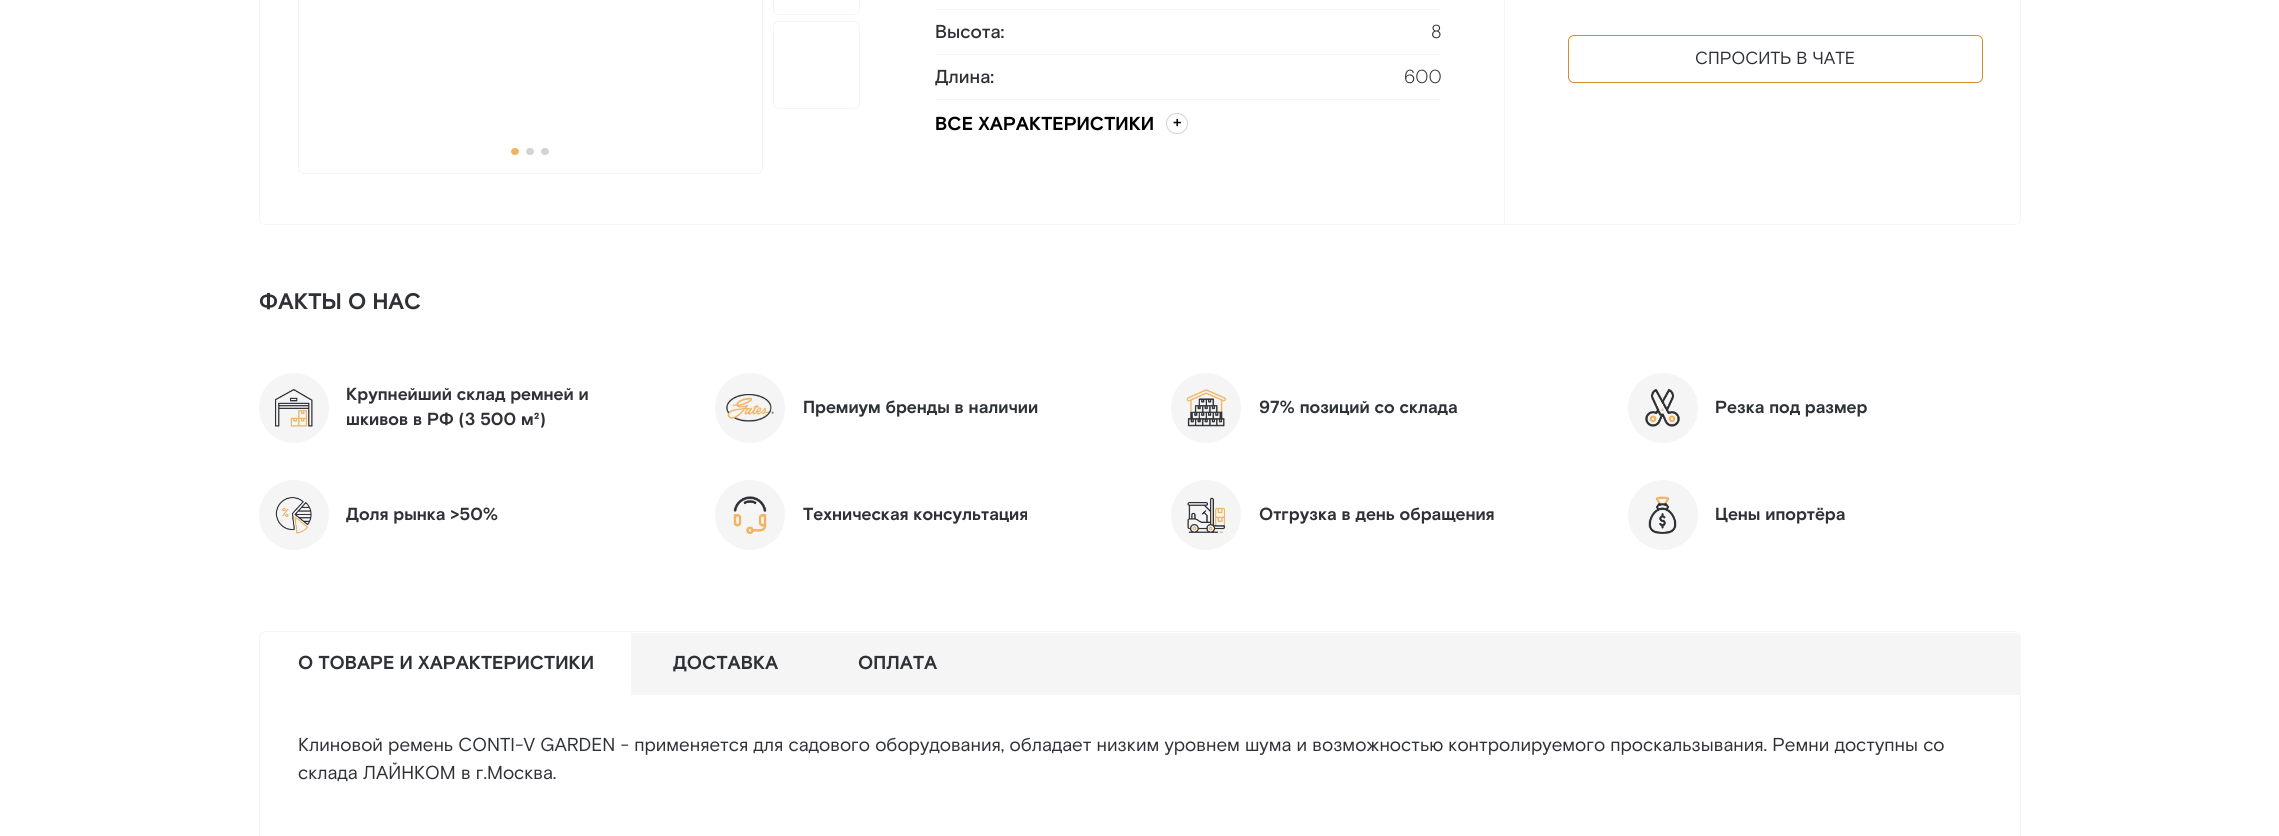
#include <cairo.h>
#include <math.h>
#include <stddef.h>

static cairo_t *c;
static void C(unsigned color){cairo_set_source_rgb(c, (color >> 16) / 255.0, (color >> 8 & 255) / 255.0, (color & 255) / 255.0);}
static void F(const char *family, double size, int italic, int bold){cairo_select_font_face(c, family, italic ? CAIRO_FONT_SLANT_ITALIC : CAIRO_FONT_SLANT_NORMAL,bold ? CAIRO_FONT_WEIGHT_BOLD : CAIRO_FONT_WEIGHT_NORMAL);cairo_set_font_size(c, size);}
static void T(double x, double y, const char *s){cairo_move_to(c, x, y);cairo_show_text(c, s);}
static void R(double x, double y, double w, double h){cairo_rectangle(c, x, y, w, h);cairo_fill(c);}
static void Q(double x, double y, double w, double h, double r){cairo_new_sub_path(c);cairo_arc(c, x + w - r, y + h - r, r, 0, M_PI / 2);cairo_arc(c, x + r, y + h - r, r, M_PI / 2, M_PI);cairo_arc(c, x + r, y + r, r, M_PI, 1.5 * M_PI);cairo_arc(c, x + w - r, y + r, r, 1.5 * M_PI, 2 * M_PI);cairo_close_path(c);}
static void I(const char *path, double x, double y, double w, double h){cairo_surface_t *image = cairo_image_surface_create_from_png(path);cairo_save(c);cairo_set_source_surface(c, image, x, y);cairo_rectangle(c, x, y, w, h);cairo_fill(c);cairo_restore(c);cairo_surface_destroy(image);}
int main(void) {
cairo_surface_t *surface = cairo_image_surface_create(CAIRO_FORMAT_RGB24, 2279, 836);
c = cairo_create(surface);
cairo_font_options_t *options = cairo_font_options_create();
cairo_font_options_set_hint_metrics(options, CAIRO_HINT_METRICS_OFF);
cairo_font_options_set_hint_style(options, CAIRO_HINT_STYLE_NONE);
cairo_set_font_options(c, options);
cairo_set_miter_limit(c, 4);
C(0xffffff);
cairo_paint(c);
Q(259.5,-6.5,1761,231,5.5);
C(0xf6f5f5);
cairo_set_line_width(c,1);
cairo_stroke(c);
Q(298.5,-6.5,464,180,5.5);
cairo_stroke(c);
Q(773.5,-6.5,86,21,5.5);
cairo_stroke(c);
Q(773.5,21.5,86,87,5.5);
cairo_stroke(c);
C(0xeeb567);
Q(511,148,8,7,3.5);
cairo_fill(c);
C(0xd3d3d5);
Q(526,148,8,7,3.5);
cairo_fill(c);
Q(541,148,8,7,3.5);
cairo_fill(c);
C(0xf6f5f5);
R(1504,0,1,224);
R(935,9,506,1);
R(935,54,506,1);
F("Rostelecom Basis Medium",18.75,0,0);
C(0x2e3136);
T(935,38,"Высота:");
F("Rostelecom Basis Light",18.75,0,0);
T(1431,38,"8");
C(0xf6f5f5);
R(935,99,506,1);
F("Rostelecom Basis Medium",18.75,0,0);
C(0x2e3136);
T(935,83,"Длина:");
F("Rostelecom Basis Light",18.75,0,0);
T(1404,83,"600");
F("Rostelecom Basis",18.75,0,1);
C(0x000000);
T(935,130,"ВСЕ ХАРАКТЕРИСТИКИ");
Q(1166.5,113.5,21,20,10);
C(0xd3d3d5);
cairo_stroke(c);
F("Rostelecom Basis",15,0,1);
C(0x000000);
T(1173,128,"+");
Q(1568.5,35.5,414,47,5.5);
C(0xd28d30);
cairo_stroke(c);
F("Rostelecom Basis",17.5,0,0);
C(0x2e3136);
T(1695,64,"СПРОСИТЬ В ЧАТЕ");
F("Rostelecom Basis",22.5,0,1);
T(259,309,"ФАКТЫ О НАС");
C(0xf6f5f5);
cairo_new_path(c);
cairo_arc(c,294,408,35,0,2 * M_PI);
cairo_fill(c);
I("1.png",275,389,38,38);
F("Rostelecom Basis",17.5,0,1);
C(0x2e3136);
T(346,400,"Крупнейший склад ремней и");
T(346,425,"шкивов в РФ (3 500 м²)");
C(0xf6f5f5);
cairo_new_path(c);
cairo_arc(c,750,408,35,0,2 * M_PI);
cairo_fill(c);
I("2.png",726,394,48,28);
C(0x2e3136);
T(803,413,"Премиум бренды в наличии");
C(0xf6f5f5);
cairo_new_path(c);
cairo_arc(c,1206,408,35,0,2 * M_PI);
cairo_fill(c);
I("3.png",1186,389,41,38);
C(0x2e3136);
T(1259,413,"97% позиций со склада");
C(0xf6f5f5);
cairo_new_path(c);
cairo_arc(c,1663,408,35,0,2 * M_PI);
cairo_fill(c);
I("4.png",1645,389,35,38);
C(0x2e3136);
T(1715,413,"Резка под размер");
C(0xf6f5f5);
cairo_new_path(c);
cairo_arc(c,294,515,35,0,2 * M_PI);
cairo_fill(c);
I("5.png",275,497,37,37);
C(0x2e3136);
T(346,520,"Доля рынка >50%");
C(0xf6f5f5);
cairo_new_path(c);
cairo_arc(c,750,515,35,0,2 * M_PI);
cairo_fill(c);
I("6.png",733,496,34,38);
C(0x2e3136);
T(803,520,"Техническая консультация");
C(0xf6f5f5);
cairo_new_path(c);
cairo_arc(c,1206,515,35,0,2 * M_PI);
cairo_fill(c);
I("7.png",1187,497,38,36);
C(0x2e3136);
T(1259,520,"Отгрузка в день обращения");
C(0xf6f5f5);
cairo_new_path(c);
cairo_arc(c,1663,515,35,0,2 * M_PI);
cairo_fill(c);
I("8.png",1648,496,29,38);
C(0x2e3136);
T(1715,520,"Цены ипортёра");
Q(259.5,631.5,1761,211,5.5);
C(0xf6f5f5);
cairo_stroke(c);
cairo_new_path(c);
cairo_move_to(c,266,633);
cairo_line_to(c,2014,633);
cairo_curve_to(c,2017.5,633,2020,635.5,2020,639);
cairo_line_to(c,2020,695);
cairo_line_to(c,260,695);
cairo_line_to(c,260,639);
cairo_curve_to(c,260,635.5,262.5,633,266,633);
cairo_close_path(c);
cairo_fill(c);
C(0xffffff);
cairo_new_path(c);
cairo_move_to(c,266,633);
cairo_line_to(c,631,633);
cairo_line_to(c,631,695);
cairo_line_to(c,260,695);
cairo_line_to(c,260,639);
cairo_curve_to(c,260,635.5,262.5,633,266,633);
cairo_close_path(c);
cairo_fill(c);
F("Rostelecom Basis",18.75,0,1);
C(0x2e3136);
T(298,669,"О ТОВАРЕ И ХАРАКТЕРИСТИКИ");
T(673,669,"ДОСТАВКА");
T(858,669,"ОПЛАТА");
F("Rostelecom Basis",18.75,0,0);
T(298,751,"Клиновой ремень CONTI-V GARDEN - применяется для садового оборудования, обладает низким уровнем шума и возможностью контролируемого проскальзывания. Ремни доступны со");
T(298,779,"склада ЛАЙНКОМ в г.Москва.");
cairo_surface_write_to_png(surface, "o.png");
cairo_font_options_destroy(options);
cairo_destroy(c);
cairo_surface_destroy(surface);
return 0;
}
